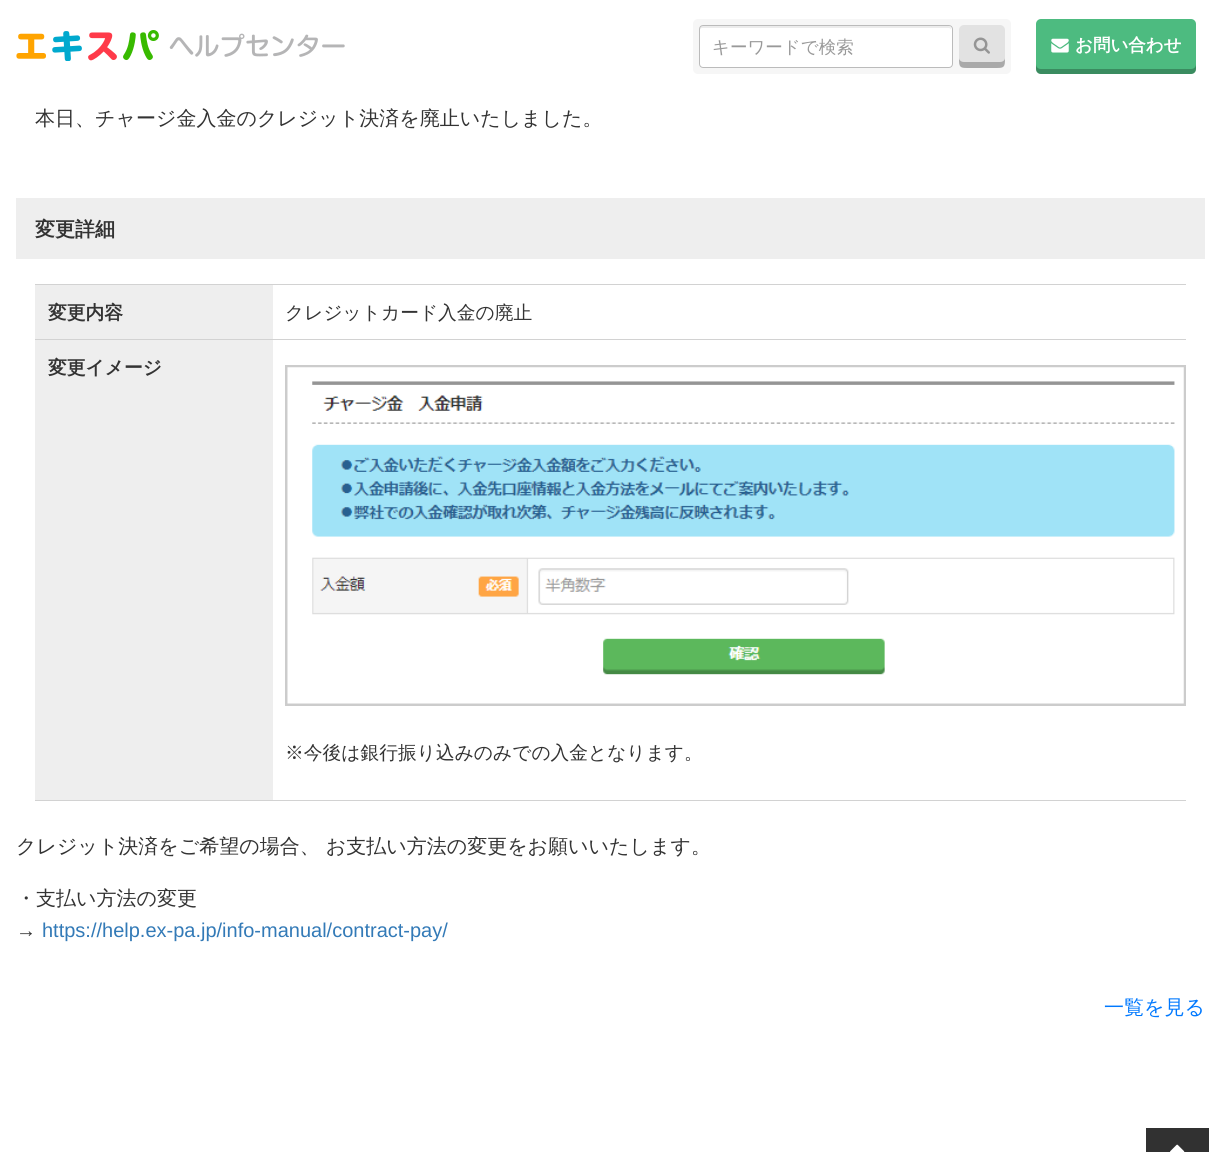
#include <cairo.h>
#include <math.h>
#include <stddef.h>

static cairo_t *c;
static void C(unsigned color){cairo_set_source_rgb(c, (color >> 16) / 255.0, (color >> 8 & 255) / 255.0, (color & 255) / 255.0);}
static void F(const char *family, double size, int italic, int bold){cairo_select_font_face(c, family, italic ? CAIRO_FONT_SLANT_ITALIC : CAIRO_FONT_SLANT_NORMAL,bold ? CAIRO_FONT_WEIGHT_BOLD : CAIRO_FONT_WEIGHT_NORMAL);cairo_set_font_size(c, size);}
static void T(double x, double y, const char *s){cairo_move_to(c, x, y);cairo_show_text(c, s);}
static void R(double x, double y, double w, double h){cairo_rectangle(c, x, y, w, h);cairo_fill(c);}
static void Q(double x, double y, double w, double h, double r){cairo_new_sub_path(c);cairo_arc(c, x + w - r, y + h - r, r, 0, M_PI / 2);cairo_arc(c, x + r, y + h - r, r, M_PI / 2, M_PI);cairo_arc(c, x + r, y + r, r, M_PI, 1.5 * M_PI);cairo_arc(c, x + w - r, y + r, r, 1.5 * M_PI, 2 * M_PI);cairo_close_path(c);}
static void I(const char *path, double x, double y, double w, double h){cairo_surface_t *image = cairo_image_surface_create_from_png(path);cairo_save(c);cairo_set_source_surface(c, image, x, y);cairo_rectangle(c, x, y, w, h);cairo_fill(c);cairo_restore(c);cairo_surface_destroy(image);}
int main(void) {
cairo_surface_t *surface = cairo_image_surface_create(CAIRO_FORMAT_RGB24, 1221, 1152);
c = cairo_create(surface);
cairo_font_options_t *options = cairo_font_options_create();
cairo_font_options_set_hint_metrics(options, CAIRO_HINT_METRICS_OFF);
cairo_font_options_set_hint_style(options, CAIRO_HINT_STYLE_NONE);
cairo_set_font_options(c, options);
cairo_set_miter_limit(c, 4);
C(0xffffff);
cairo_paint(c);
I("1.png",16,30,329,31);
C(0xf6f6f6);
Q(693,19,318,55,5);
cairo_fill(c);
C(0xffffff);
Q(699,25,254,43,4);
cairo_fill(c);
C(0xececec);
cairo_new_path(c);
cairo_move_to(c,702,28);
cairo_line_to(c,949,28);
cairo_curve_to(c,950,28,951,29,951,30);
cairo_curve_to(c,951,28,951,26,948,26);
cairo_line_to(c,702,26);
cairo_curve_to(c,700,26,700,28,700,30);
cairo_curve_to(c,700,29,701,28,702,28);
cairo_close_path(c);
cairo_fill(c);
Q(699.5,25.5,253,42,3.5);
C(0xbbbbbb);
cairo_set_line_width(c,1);
cairo_stroke(c);
F("WenQuanYi Zen Hei Medium",17.5,0,0);
C(0x999999);
T(712,53,"キーワードで検索");
C(0xe2e2e2);
Q(959,25,46,43,5);
cairo_fill(c);
cairo_set_source_rgba(c,0,0,0,0.25);
cairo_new_path(c);
cairo_move_to(c,959,58);
cairo_curve_to(c,959,68,960,68,970,68);
cairo_line_to(c,994,68);
cairo_curve_to(c,1004,68,1005,68,1005,58);
cairo_curve_to(c,1005,60,1003,62,1000,62);
cairo_line_to(c,964,62);
cairo_curve_to(c,961,62,959,60,959,58);
cairo_close_path(c);
cairo_fill(c);
I("2.png",973,37,17,17);
C(0x4dbb80);
Q(1036,19,160,55,5);
cairo_fill(c);
cairo_set_source_rgba(c,0,0,0,0.25);
cairo_new_path(c);
cairo_move_to(c,1036,64);
cairo_line_to(c,1036,69);
cairo_curve_to(c,1036,72,1038,74,1041,74);
cairo_line_to(c,1191,74);
cairo_curve_to(c,1194,74,1196,72,1196,69);
cairo_line_to(c,1196,64);
cairo_curve_to(c,1196,67,1194,69,1191,69);
cairo_line_to(c,1041,69);
cairo_curve_to(c,1038,69,1036,67,1036,64);
cairo_close_path(c);
cairo_fill(c);
I("3.png",1051,38,18,15);
F("WenQuanYi Zen Hei",17.5,0,1);
C(0xffffff);
T(1075,51,"お問い合わせ");
F("WenQuanYi Zen Hei Medium",20,0,0);
C(0x333333);
T(35,125,"本日、チャージ金入金のクレジット決済を廃止いたしました。");
C(0xeeeeee);
R(16,198,1189,61);
F("WenQuanYi Zen Hei",20,0,1);
C(0x333333);
T(35,236,"変更詳細");
C(0xd2d2d2);
R(35,284,1151,1);
C(0xeeeeee);
R(35,285,238,54);
F("WenQuanYi Zen Hei",18.75,0,1);
C(0x333333);
T(48,319,"変更内容");
F("WenQuanYi Zen Hei Medium",18.75,0,0);
T(285,319,"クレジットカード入金の廃止");
C(0xd2d2d2);
R(35,339,1151,1);
R(35,800,1151,1);
C(0xeeeeee);
R(35,340,238,460);
F("WenQuanYi Zen Hei",18.75,0,1);
C(0x333333);
T(48,374,"変更イメージ");
cairo_rectangle(c,286.5,366.5,898,338);
C(0xcccccc);
cairo_set_line_width(c,3);
cairo_stroke(c);
I("4.png",287,367,897,337);
F("WenQuanYi Zen Hei Medium",18.75,0,0);
C(0x333333);
T(285,759,"※今後は銀行振り込みのみでの入金となります。");
F("WenQuanYi Zen Hei Medium",20,0,0);
T(16,853,"クレジット決済をご希望の場合、 お支払い方法の変更をお願いいたします。");
T(16,905,"・支払い方法の変更");
F("Liberation Sans",20,0,0);
T(16,937,"→");
C(0x337ab7);
T(42,937,"https://help.ex-pa.jp/info-manual/contract-pay/");
F("WenQuanYi Zen Hei Medium",20,0,0);
C(0x0078fe);
T(1104,1014,"一覧を見る");
C(0x313131);
R(1146,1128,63,24);
I("5.png",1170,1144,15,8);
cairo_surface_write_to_png(surface, "o.png");
cairo_font_options_destroy(options);
cairo_destroy(c);
cairo_surface_destroy(surface);
return 0;
}
